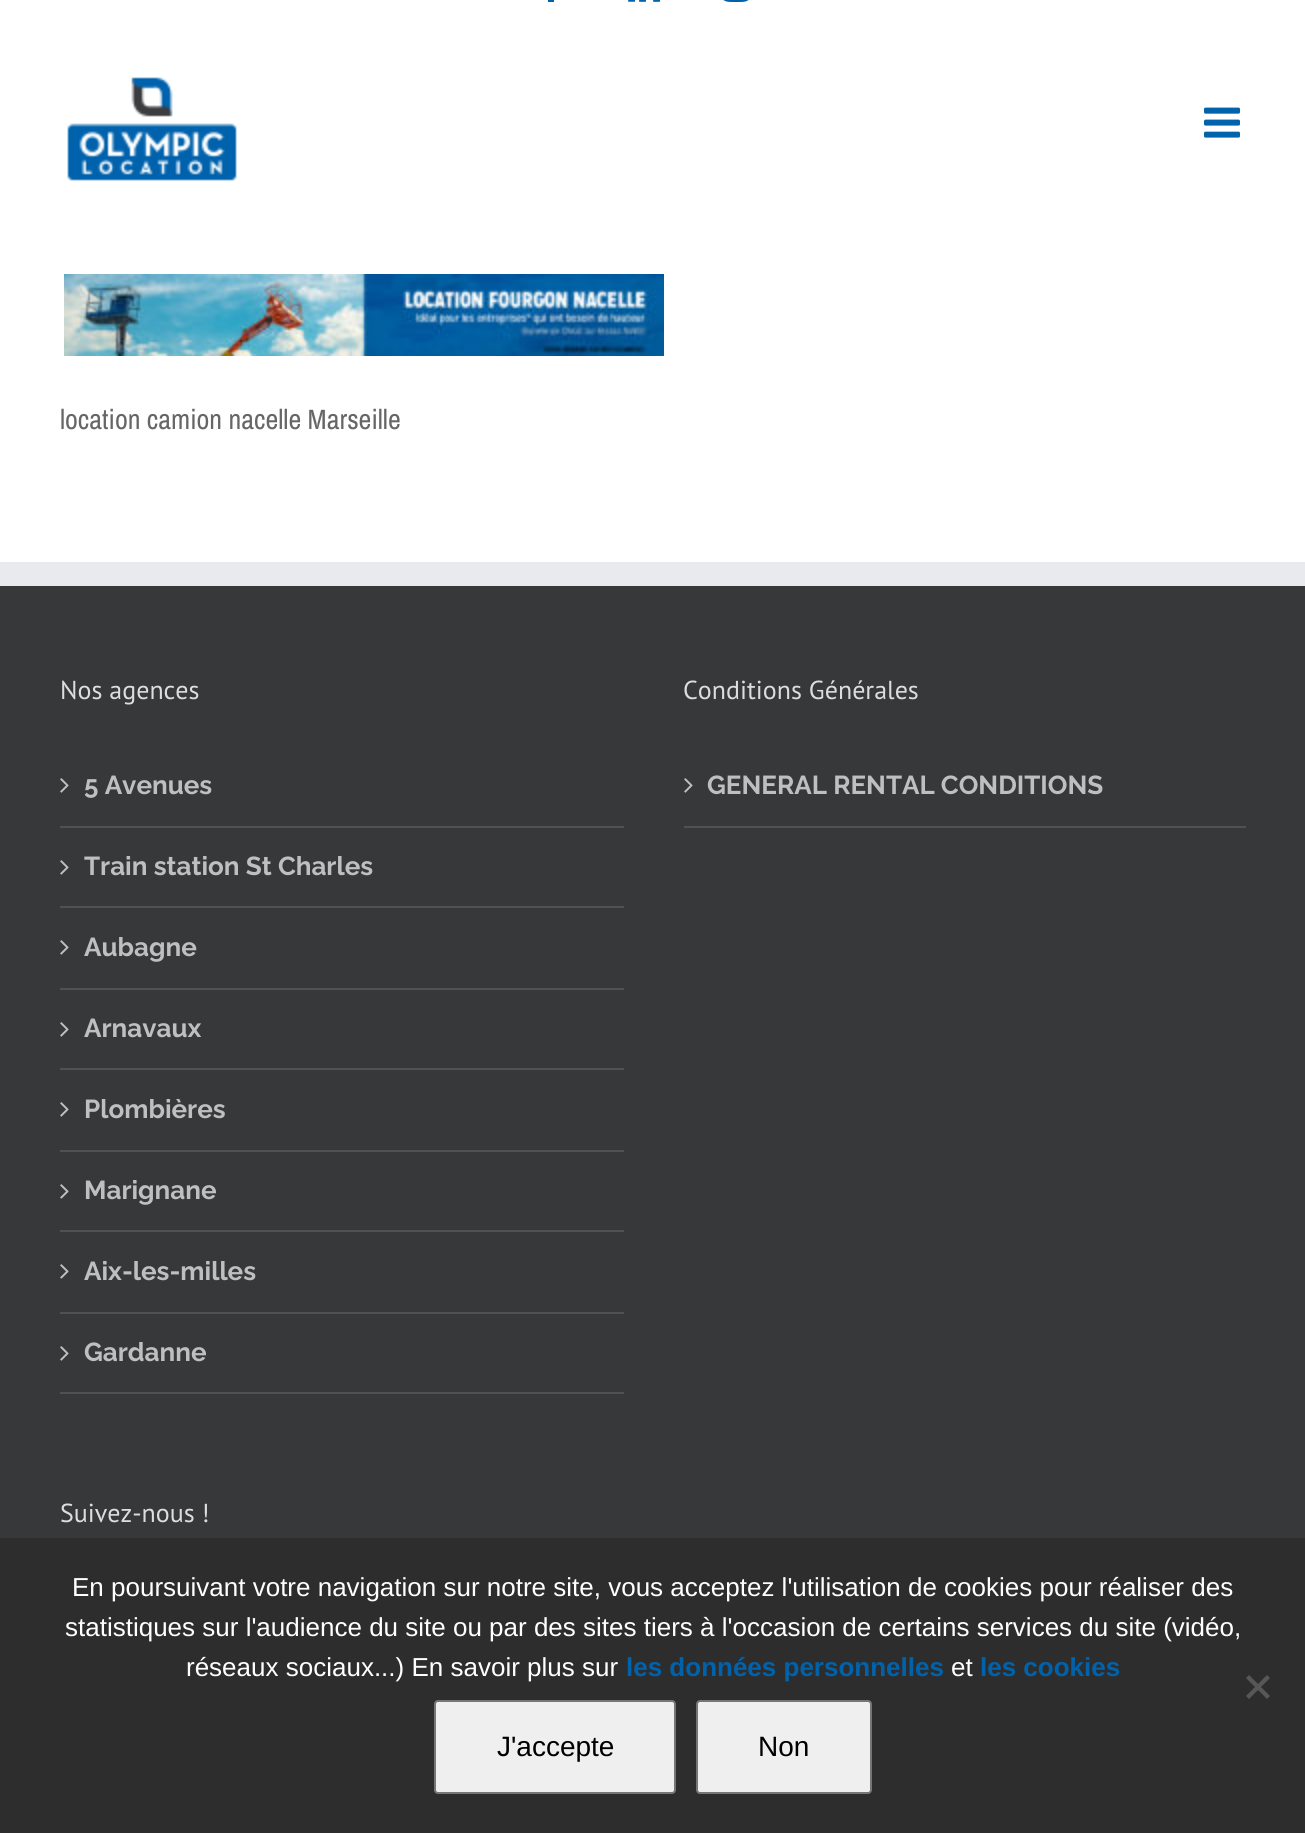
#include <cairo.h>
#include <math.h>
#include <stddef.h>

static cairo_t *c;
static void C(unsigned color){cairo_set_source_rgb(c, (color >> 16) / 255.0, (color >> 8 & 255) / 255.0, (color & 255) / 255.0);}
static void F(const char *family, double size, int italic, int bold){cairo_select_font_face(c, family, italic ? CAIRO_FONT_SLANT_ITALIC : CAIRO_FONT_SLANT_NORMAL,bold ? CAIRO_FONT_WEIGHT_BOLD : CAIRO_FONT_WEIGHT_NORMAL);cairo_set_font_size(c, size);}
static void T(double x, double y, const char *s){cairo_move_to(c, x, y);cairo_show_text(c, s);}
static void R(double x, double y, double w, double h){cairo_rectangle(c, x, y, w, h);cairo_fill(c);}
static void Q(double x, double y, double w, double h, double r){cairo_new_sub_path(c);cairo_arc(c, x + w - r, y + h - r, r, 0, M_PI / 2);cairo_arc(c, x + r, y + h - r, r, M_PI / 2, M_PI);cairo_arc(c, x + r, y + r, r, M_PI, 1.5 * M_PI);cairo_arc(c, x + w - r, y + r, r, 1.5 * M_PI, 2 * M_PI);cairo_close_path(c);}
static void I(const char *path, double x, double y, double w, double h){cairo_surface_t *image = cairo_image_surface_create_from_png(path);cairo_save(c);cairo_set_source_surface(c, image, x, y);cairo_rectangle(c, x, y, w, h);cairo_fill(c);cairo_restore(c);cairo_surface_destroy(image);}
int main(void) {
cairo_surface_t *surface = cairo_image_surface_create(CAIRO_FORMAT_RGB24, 1305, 1833);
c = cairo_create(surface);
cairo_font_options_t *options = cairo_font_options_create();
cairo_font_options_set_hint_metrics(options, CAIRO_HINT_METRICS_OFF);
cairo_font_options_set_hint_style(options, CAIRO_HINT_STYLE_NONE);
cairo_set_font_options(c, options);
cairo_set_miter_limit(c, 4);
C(0xffffff);
cairo_paint(c);
C(0x0162ac);
R(548,0,6,2);
I("1.png",628,0,32,2);
I("2.png",723,0,26,2);
I("3.png",67,77,170,104);
I("4.png",1204,107,36,31);
I("5.png",64,274,600,82);
F("Archivo Narrow",28,0,0);
C(0x666666);
T(60,429,"location camion nacelle Marseille");
C(0x363839);
R(0,586,1305,952);
C(0xe9eaee);
R(0,562,1305,24);
F("PT Sans",26,0,0);
C(0xdddddd);
T(60,699,"Nos agences");
C(0x505152);
R(60,826,564,2);
I("6.png",60,778,9,15);
F("Raleway",26,0,1);
C(0xbfbfbf);
T(84,794,"5 Avenues");
C(0x505152);
R(60,906,564,2);
I("6.png",60,860,9,15);
C(0xbfbfbf);
T(84,875,"Train station St Charles");
C(0x505152);
R(60,988,564,2);
I("6.png",60,940,9,15);
C(0xbfbfbf);
T(84,956,"Aubagne");
C(0x505152);
R(60,1068,564,2);
I("6.png",60,1022,9,15);
C(0xbfbfbf);
T(84,1037,"Arnavaux");
C(0x505152);
R(60,1150,564,2);
I("6.png",60,1102,9,15);
C(0xbfbfbf);
T(84,1118,"Plombières");
C(0x505152);
R(60,1230,564,2);
I("6.png",60,1184,9,15);
C(0xbfbfbf);
T(84,1199,"Marignane");
C(0x505152);
R(60,1312,564,2);
I("6.png",60,1264,9,15);
C(0xbfbfbf);
T(84,1280,"Aix-les-milles");
C(0x505152);
R(60,1392,564,2);
I("6.png",60,1346,9,15);
C(0xbfbfbf);
T(84,1361,"Gardanne");
F("PT Sans",26,0,0);
C(0xdddddd);
T(683,699,"Conditions Générales");
C(0x505152);
R(684,826,562,2);
I("6.png",684,778,9,15);
F("Raleway",26,0,1);
C(0xbfbfbf);
T(707,794,"GENERAL RENTAL CONDITIONS");
F("PT Sans",26,0,0);
C(0xdddddd);
T(60,1522,"Suivez-nous !");
C(0x2d2d2d);
R(0,1538,1305,295);
F("Liberation Sans",26,0,0);
C(0xffffff);
T(72,1596,"En poursuivant votre navigation sur notre site, vous acceptez l'utilisation de cookies pour réaliser des");
T(65,1636,"statistiques sur l'audience du site ou par des sites tiers à l'occasion de certains services du site (vidéo,");
T(186,1676,"réseaux sociaux...) En savoir plus sur");
F("Liberation Sans",26,0,1);
C(0x0162ac);
T(626,1676,"les données personnelles");
F("Liberation Sans",26,0,0);
C(0xffffff);
T(951,1676,"et");
F("Liberation Sans",26,0,1);
C(0x0162ac);
T(980,1676,"les cookies");
C(0x575757);
cairo_new_path(c);
cairo_move_to(c,1267,1675);
cairo_line_to(c,1270,1678);
cairo_line_to(c,1249,1699);
cairo_line_to(c,1246,1696);
cairo_close_path(c);
cairo_fill(c);
cairo_new_path(c);
cairo_move_to(c,1246,1678);
cairo_line_to(c,1249,1675);
cairo_line_to(c,1270,1696);
cairo_line_to(c,1267,1699);
cairo_close_path(c);
cairo_fill(c);
C(0xefefef);
Q(435,1701,240,92,3);
cairo_fill_preserve(c);
C(0x767676);
cairo_stroke(c);
F("Liberation Sans",28,0,0);
C(0x000000);
T(497,1756,"J'accepte");
C(0xefefef);
Q(697,1701,174,92,3);
cairo_fill_preserve(c);
C(0x767676);
cairo_stroke(c);
C(0x000000);
T(758,1756,"Non");
cairo_surface_write_to_png(surface, "o.png");
cairo_font_options_destroy(options);
cairo_destroy(c);
cairo_surface_destroy(surface);
return 0;
}
